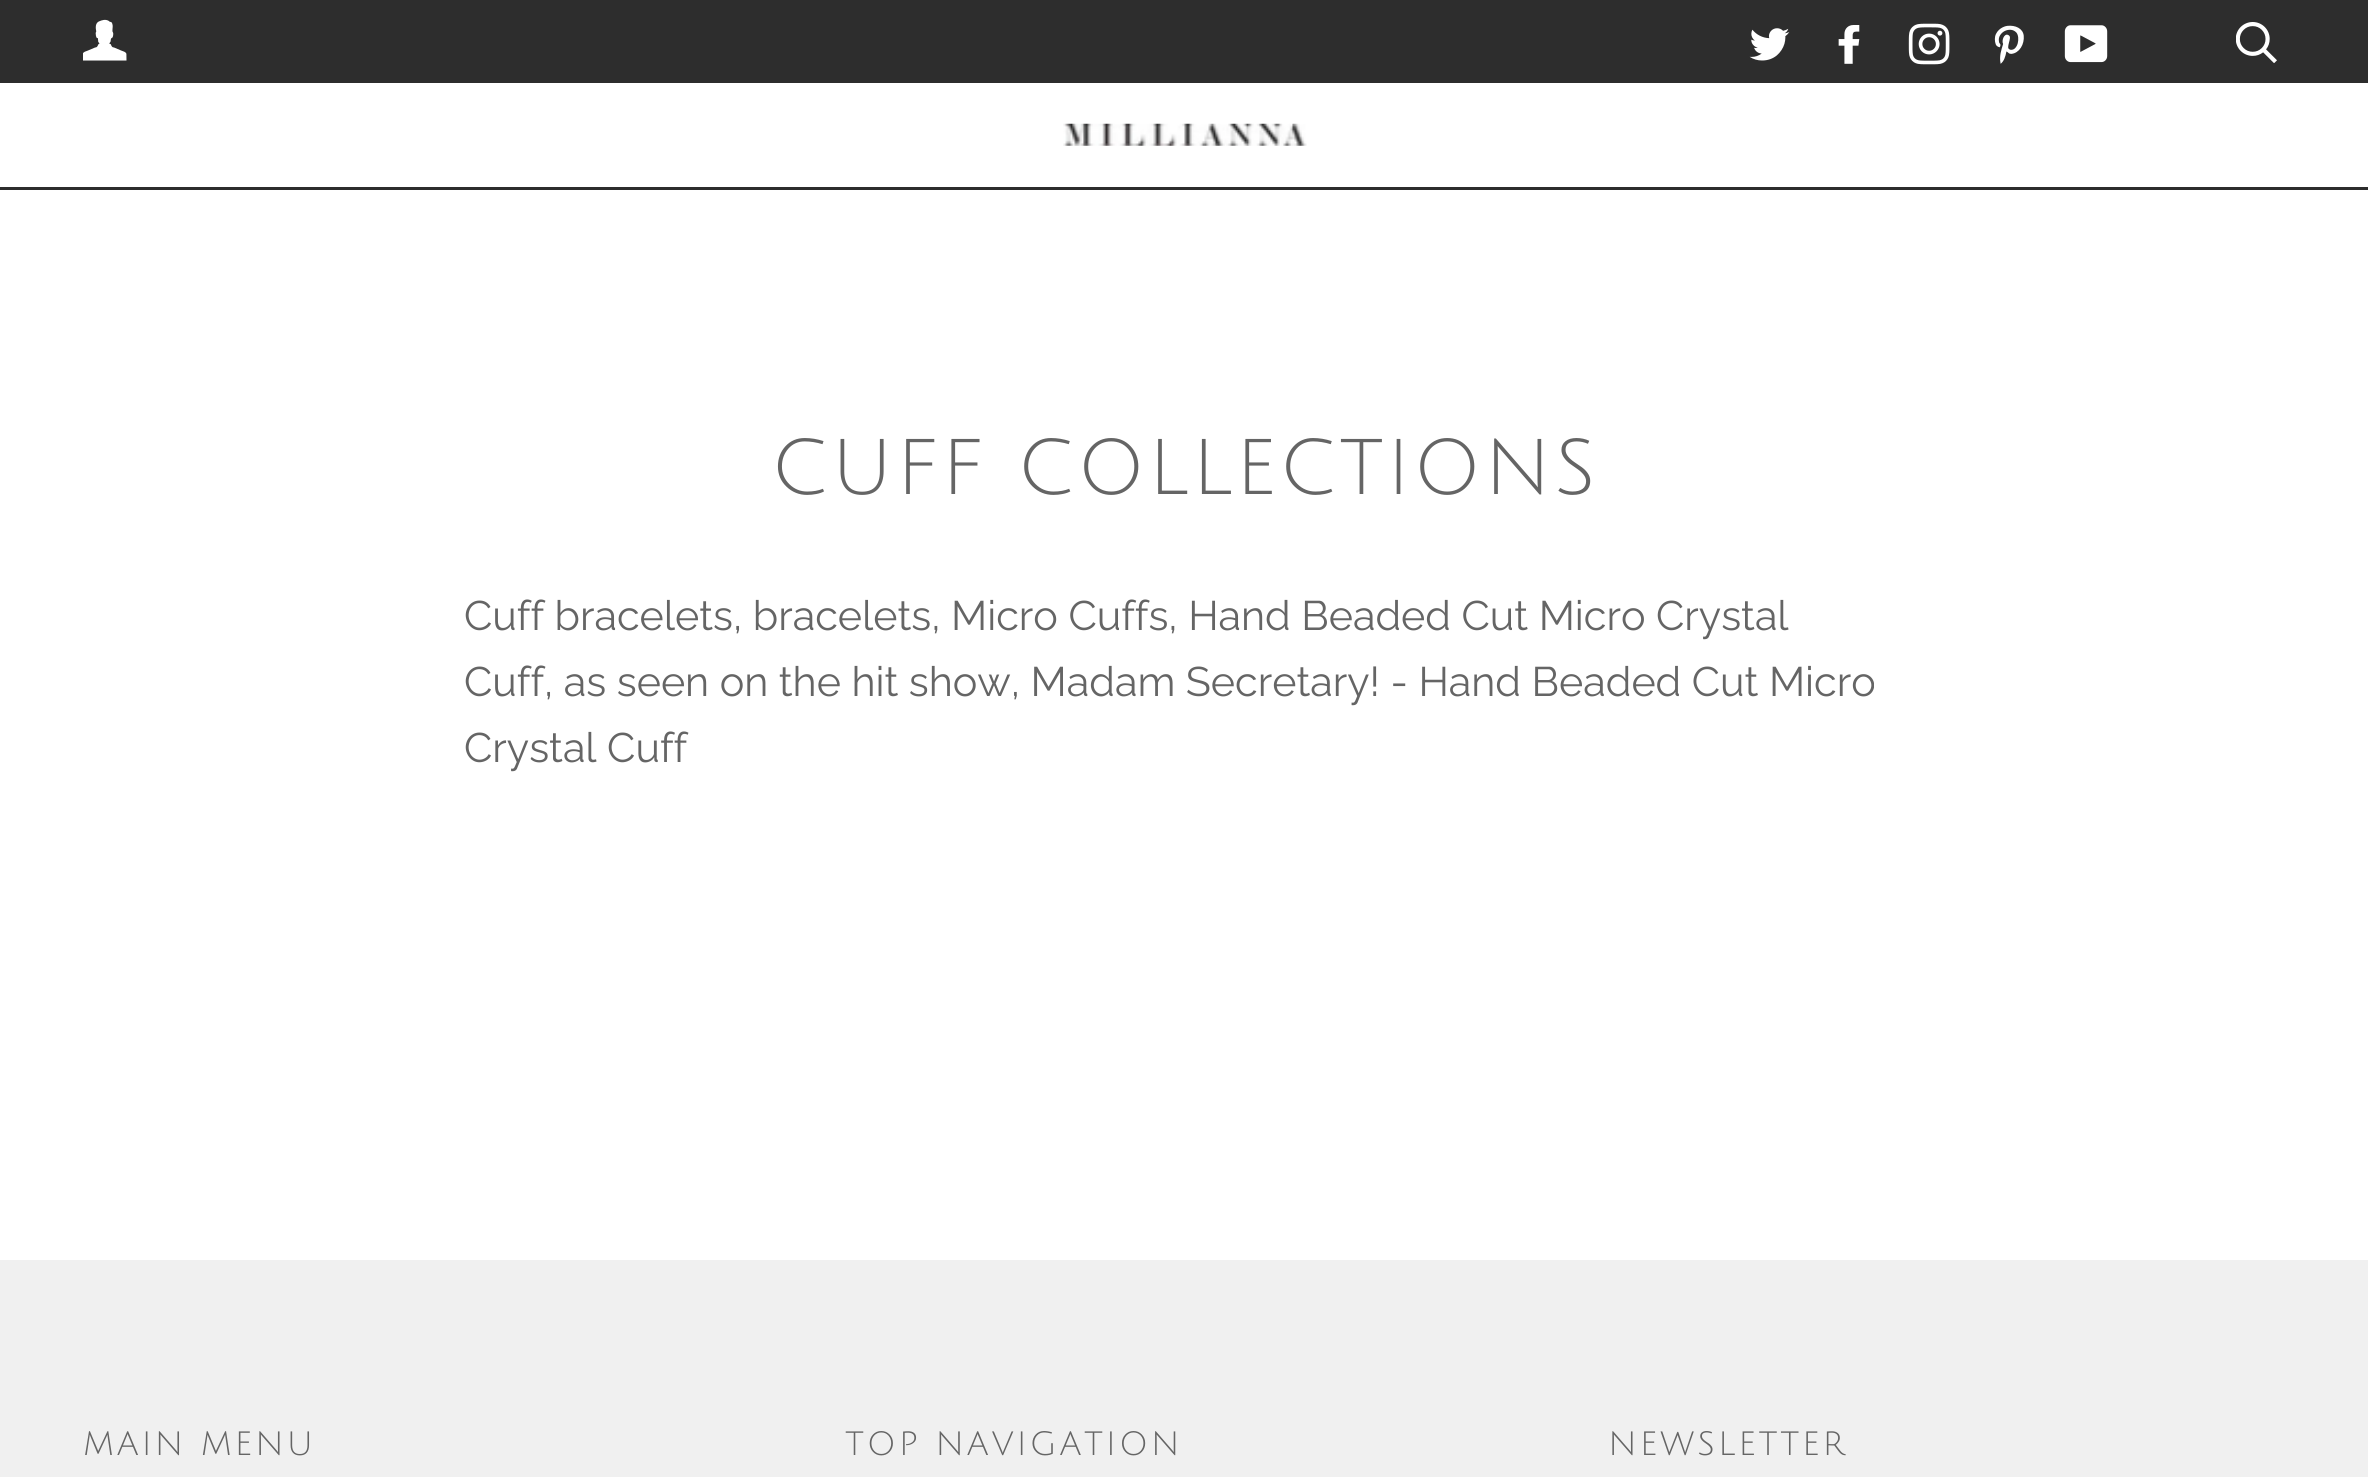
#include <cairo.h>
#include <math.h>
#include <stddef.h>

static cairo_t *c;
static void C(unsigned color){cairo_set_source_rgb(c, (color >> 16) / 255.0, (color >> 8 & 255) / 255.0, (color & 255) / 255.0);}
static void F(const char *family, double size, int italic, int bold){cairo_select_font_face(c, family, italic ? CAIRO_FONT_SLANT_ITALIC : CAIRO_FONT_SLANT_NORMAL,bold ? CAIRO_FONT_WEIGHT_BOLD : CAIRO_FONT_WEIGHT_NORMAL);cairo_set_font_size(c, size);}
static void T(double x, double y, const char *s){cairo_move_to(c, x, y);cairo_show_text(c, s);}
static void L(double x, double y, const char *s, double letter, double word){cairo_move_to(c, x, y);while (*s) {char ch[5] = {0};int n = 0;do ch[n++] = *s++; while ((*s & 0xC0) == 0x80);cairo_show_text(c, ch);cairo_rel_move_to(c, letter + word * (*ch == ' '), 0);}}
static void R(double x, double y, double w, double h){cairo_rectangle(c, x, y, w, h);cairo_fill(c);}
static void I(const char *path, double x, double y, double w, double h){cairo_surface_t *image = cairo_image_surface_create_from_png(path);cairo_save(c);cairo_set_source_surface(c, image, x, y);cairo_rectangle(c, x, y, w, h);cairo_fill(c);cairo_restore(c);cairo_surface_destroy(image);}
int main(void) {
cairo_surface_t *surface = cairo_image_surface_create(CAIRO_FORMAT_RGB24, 2368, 1477);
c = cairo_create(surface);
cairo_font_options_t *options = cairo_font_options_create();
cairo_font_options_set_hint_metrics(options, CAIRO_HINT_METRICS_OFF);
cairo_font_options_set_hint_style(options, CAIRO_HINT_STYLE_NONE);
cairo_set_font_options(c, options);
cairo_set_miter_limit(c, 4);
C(0xffffff);
cairo_paint(c);
C(0x2d2d2d);
R(0,0,2368,83);
I("1.png",83,19,44,42);
I("2.png",1749,28,41,33);
I("3.png",1838,25,22,39);
I("4.png",1908,23,42,42);
I("5.png",1994,25,30,39);
I("6.png",2064,25,44,38);
I("7.png",2236,22,41,41);
R(0,187,2368,3);
I("8.png",1063,123,244,23);
F("Julius Sans One",77,0,0);
C(0x656565);
L(771,494,"CUFF COLLECTIONS",2.75,0);
F("Raleway",41.25,0,0);
T(464,630,"Cuff bracelets, bracelets, Micro Cuffs, Hand Beaded Cut Micro Crystal");
T(464,696,"Cuff, as seen on the hit show, Madam Secretary! - Hand Beaded Cut Micro");
T(464,762,"Crystal Cuff");
C(0xf0f0f0);
R(0,1260,2368,217);
F("Julius Sans One",33,0,0);
C(0x656565);
L(83,1455,"MAIN MENU",2.75,0);
L(845,1455,"TOP NAVIGATION",2.75,0);
L(1608,1455,"NEWSLETTER",2.75,0);
cairo_surface_write_to_png(surface, "o.png");
cairo_font_options_destroy(options);
cairo_destroy(c);
cairo_surface_destroy(surface);
return 0;
}
